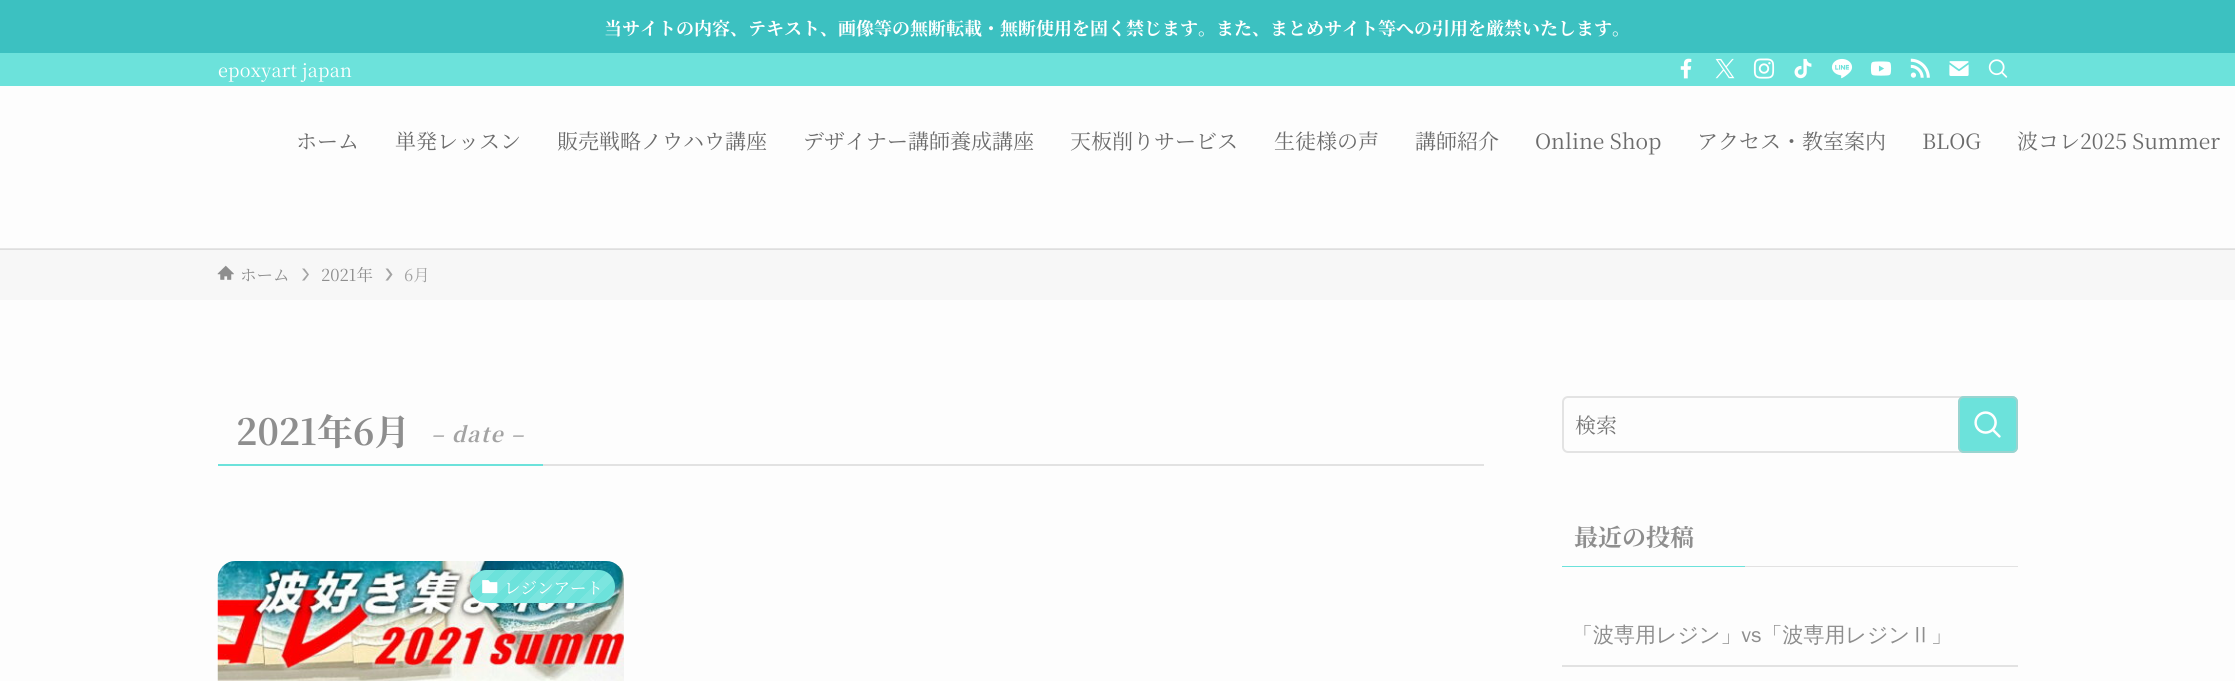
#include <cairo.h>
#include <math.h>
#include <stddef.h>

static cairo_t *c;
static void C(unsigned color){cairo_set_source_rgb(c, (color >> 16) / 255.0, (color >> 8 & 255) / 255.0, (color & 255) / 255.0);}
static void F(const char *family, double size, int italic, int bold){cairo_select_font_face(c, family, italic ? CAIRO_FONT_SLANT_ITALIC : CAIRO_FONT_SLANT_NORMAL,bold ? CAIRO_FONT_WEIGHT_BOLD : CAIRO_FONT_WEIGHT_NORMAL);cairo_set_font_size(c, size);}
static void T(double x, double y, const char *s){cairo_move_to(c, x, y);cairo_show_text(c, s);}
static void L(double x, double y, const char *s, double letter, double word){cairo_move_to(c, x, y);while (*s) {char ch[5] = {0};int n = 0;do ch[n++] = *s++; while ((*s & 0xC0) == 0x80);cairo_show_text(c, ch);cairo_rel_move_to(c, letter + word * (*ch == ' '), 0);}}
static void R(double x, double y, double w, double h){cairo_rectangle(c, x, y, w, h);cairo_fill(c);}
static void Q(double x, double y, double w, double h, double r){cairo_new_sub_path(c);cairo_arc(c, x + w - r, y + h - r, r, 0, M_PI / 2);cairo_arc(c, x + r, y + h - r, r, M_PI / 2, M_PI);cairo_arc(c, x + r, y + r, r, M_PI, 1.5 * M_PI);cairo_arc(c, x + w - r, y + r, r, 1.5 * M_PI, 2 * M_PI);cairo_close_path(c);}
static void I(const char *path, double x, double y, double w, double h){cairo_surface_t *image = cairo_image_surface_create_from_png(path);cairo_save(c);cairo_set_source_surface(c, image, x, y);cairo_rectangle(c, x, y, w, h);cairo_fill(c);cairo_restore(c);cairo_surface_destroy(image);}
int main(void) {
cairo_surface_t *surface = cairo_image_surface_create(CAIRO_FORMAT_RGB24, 2235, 681);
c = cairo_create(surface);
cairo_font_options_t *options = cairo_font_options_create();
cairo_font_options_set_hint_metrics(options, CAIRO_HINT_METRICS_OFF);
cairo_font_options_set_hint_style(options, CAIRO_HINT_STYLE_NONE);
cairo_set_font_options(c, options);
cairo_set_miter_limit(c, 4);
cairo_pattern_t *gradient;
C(0xfdfdfd);
cairo_paint(c);
C(0x3cc1c1);
R(0,0,2235,53);
F("Noto Serif JP",18,0,1);
C(0xffffff);
T(604,35,"当サイトの内容、テキスト、画像等の無断転載・無断使用を固く禁じます。また、まとめサイト等への引用を厳禁いたします。");
C(0xe6e6e6);
R(0,248,2235,1);
C(0x6ce2db);
R(0,53,2235,33);
F("Noto Serif JP",18,0,0);
C(0xffffff);
L(218,77,"epoxyart japan",.25,0);
I("1.png",1680,58,12,21);
I("2.png",1715,58,20,21);
I("3.png",1753,58,22,21);
I("4.png",1794,58,18,21);
I("5.png",1831,58,22,21);
I("6.png",1870,61,22,15);
I("7.png",1910,58,20,20);
I("8.png",1949,61,20,15);
I("9.png",1988,59,20,19);
F("Noto Serif JP",21,0,0);
C(0x6b6b6b);
T(296,149,"ホーム");
T(395,149,"単発レッスン");
T(557,149,"販売戦略ノウハウ講座");
T(803,149,"デザイナー講師養成講座");
T(1070,149,"天板削りサービス");
T(1274,149,"生徒様の声");
T(1415,149,"講師紹介");
T(1535,149,"Online Shop");
T(1697,149,"アクセス・教室案内");
T(1922,149,"BLOG");
T(2017,149,"波コレ2025 Summer");
C(0xf7f7f7);
R(0,250,2235,50);
C(0xdedede);
R(0,249,2235,1);
I("10.png",217,265,17,15);
F("Noto Serif JP",16.5,0,0);
C(0x8e8e8e);
T(240,281,"ホーム");
C(0xa3a3a3);
cairo_new_path(c);
cairo_move_to(c,304.5,268.5);
cairo_line_to(c,302,268.5);
cairo_line_to(c,307,274.5);
cairo_line_to(c,302,280.5);
cairo_line_to(c,304.5,280.5);
cairo_line_to(c,309,274.5);
cairo_close_path(c);
cairo_fill(c);
C(0x8e8e8e);
T(321,281,"2021年");
C(0xa3a3a3);
cairo_new_path(c);
cairo_move_to(c,388,268.5);
cairo_line_to(c,385.5,268.5);
cairo_line_to(c,390,274.5);
cairo_line_to(c,385.5,280.5);
cairo_line_to(c,388,280.5);
cairo_line_to(c,392.5,274.5);
cairo_close_path(c);
cairo_fill(c);
T(404,281,"6月");
C(0xe2e2e2);
R(543,464,941,2);
C(0x6ce2db);
R(218,464,325,2);
F("Noto Serif JP",36,0,1);
C(0x8e8e8e);
T(236,445,"2021年6月");
F("Noto Serif JP",21,1,1);
C(0xa3a3a3);
L(431,442,"– date –",1.5,0);
I("11.png",217,561,407,120);
C(0x6ce2db);
Q(470,570,145,33,16.5);
cairo_fill(c);
gradient = cairo_pattern_create_linear(587,631,485,529);
cairo_pattern_add_color_stop_rgba(gradient,0,1,1,1,.1);
cairo_pattern_add_color_stop_rgba(gradient,.06,1,1,1,.1);
cairo_pattern_add_color_stop_rgba(gradient,.06,1,1,1,0);
cairo_pattern_add_color_stop_rgba(gradient,.12,1,1,1,0);
cairo_pattern_add_color_stop_rgba(gradient,.12,1,1,1,.1);
cairo_pattern_add_color_stop_rgba(gradient,.19,1,1,1,.1);
cairo_pattern_add_color_stop_rgba(gradient,.19,1,1,1,0);
cairo_pattern_add_color_stop_rgba(gradient,.25,1,1,1,0);
cairo_pattern_add_color_stop_rgba(gradient,.25,1,1,1,.1);
cairo_pattern_add_color_stop_rgba(gradient,.31,1,1,1,.1);
cairo_pattern_add_color_stop_rgba(gradient,.31,1,1,1,0);
cairo_pattern_add_color_stop_rgba(gradient,.38,1,1,1,0);
cairo_pattern_add_color_stop_rgba(gradient,.38,1,1,1,.1);
cairo_pattern_add_color_stop_rgba(gradient,.44,1,1,1,.1);
cairo_pattern_add_color_stop_rgba(gradient,.44,1,1,1,0);
cairo_pattern_add_color_stop_rgba(gradient,.5,1,1,1,0);
cairo_pattern_add_color_stop_rgba(gradient,.5,1,1,1,.1);
cairo_pattern_add_color_stop_rgba(gradient,.56,1,1,1,.1);
cairo_pattern_add_color_stop_rgba(gradient,.56,1,1,1,0);
cairo_pattern_add_color_stop_rgba(gradient,.62,1,1,1,0);
cairo_pattern_add_color_stop_rgba(gradient,.62,1,1,1,.1);
cairo_pattern_add_color_stop_rgba(gradient,.69,1,1,1,.1);
cairo_pattern_add_color_stop_rgba(gradient,.69,1,1,1,0);
cairo_pattern_add_color_stop_rgba(gradient,.75,1,1,1,0);
cairo_pattern_add_color_stop_rgba(gradient,.75,1,1,1,.1);
cairo_pattern_add_color_stop_rgba(gradient,.81,1,1,1,.1);
cairo_pattern_add_color_stop_rgba(gradient,.81,1,1,1,0);
cairo_pattern_add_color_stop_rgba(gradient,.88,1,1,1,0);
cairo_pattern_add_color_stop_rgba(gradient,.88,1,1,1,.1);
cairo_pattern_add_color_stop_rgba(gradient,.94,1,1,1,.1);
cairo_pattern_add_color_stop_rgba(gradient,.94,1,1,1,0);
cairo_pattern_add_color_stop_rgba(gradient,1,0,0,0,0);
cairo_set_source(c,gradient);
cairo_pattern_destroy(gradient);
Q(470,570,145,33,16.5);
cairo_fill(c);
I("12.png",482,580,16,14);
F("Noto Serif JP",16.5,0,0);
C(0xffffff);
T(504,594,"レジンアート");
Q(1563,397,454,55,5);
C(0xe3e3e3);
cairo_stroke(c);
F("Noto Serif JP",21,0,0);
C(0x757575);
T(1575,433,"検索");
C(0x6ce2db);
Q(1958,396,60,57,6);
cairo_fill(c);
Q(1959,397,58,55,5);
cairo_set_source_rgba(c,0.78,0.78,0.78,0.5);
cairo_stroke(c);
I("13.png",1974,411,27,27);
F("Noto Serif JP",24,0,1);
C(0x8e8e8e);
T(1574,546,"最近の投稿");
C(0x6ce2db);
R(1562,566,183,1);
C(0xe2e2e2);
R(1745,566,273,1);
R(1562,665,456,2);
F("WenQuanYi Zen Hei Medium",21,0,0);
C(0x8e8e8e);
T(1572,642,"「波専用レジン」vs「波専用レジンⅡ」");
cairo_surface_write_to_png(surface, "o.png");
cairo_font_options_destroy(options);
cairo_destroy(c);
cairo_surface_destroy(surface);
return 0;
}
